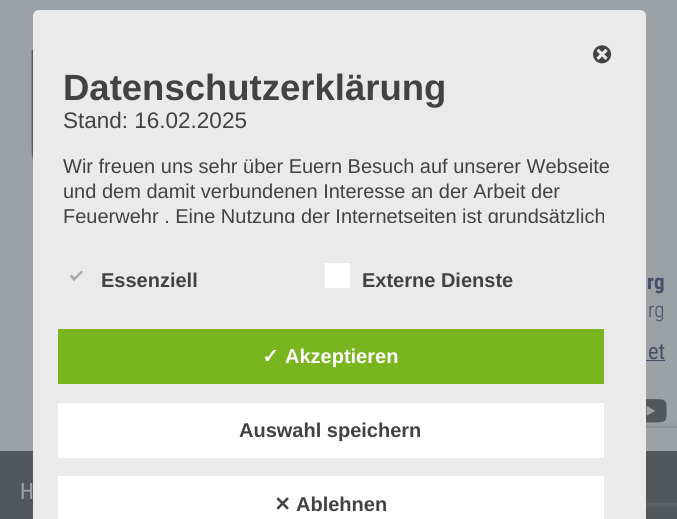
#include <cairo.h>
#include <math.h>
#include <stddef.h>

static cairo_t *c;
static void C(unsigned color){cairo_set_source_rgb(c, (color >> 16) / 255.0, (color >> 8 & 255) / 255.0, (color & 255) / 255.0);}
static void F(const char *family, double size, int italic, int bold){cairo_select_font_face(c, family, italic ? CAIRO_FONT_SLANT_ITALIC : CAIRO_FONT_SLANT_NORMAL,bold ? CAIRO_FONT_WEIGHT_BOLD : CAIRO_FONT_WEIGHT_NORMAL);cairo_set_font_size(c, size);}
static void T(double x, double y, const char *s){cairo_move_to(c, x, y);cairo_show_text(c, s);}
static void R(double x, double y, double w, double h){cairo_rectangle(c, x, y, w, h);cairo_fill(c);}
static void Q(double x, double y, double w, double h, double r){cairo_new_sub_path(c);cairo_arc(c, x + w - r, y + h - r, r, 0, M_PI / 2);cairo_arc(c, x + r, y + h - r, r, M_PI / 2, M_PI);cairo_arc(c, x + r, y + r, r, M_PI, 1.5 * M_PI);cairo_arc(c, x + w - r, y + r, r, 1.5 * M_PI, 2 * M_PI);cairo_close_path(c);}
static void S(double x, double y, double w, double h, double r, double blur, double alpha){cairo_push_group_with_content(c, CAIRO_CONTENT_ALPHA);cairo_set_operator(c, CAIRO_OPERATOR_SOURCE);for (int i = 15; i >= -15 && fmin(w, h) + blur * i / 3 > 0; i -= 2) {double e = blur * i / 6;cairo_set_source_rgba(c, 0, 0, 0, alpha * erfc((i - 1) / 8.5) / 2);Q(x - e, y - e, w + 2 * e, h + 2 * e, fmax(0, fmin(r + e + blur * .6, fmin(w, h) / 2 + e)));cairo_fill(c);}cairo_pattern_t *soft = cairo_pop_group(c);cairo_mask(c, soft);cairo_pattern_destroy(soft);}
static void I(const char *path, double x, double y, double w, double h){cairo_surface_t *image = cairo_image_surface_create_from_png(path);cairo_save(c);cairo_set_source_surface(c, image, x, y);cairo_rectangle(c, x, y, w, h);cairo_fill(c);cairo_restore(c);cairo_surface_destroy(image);}
int main(void) {
cairo_surface_t *surface = cairo_image_surface_create(CAIRO_FORMAT_RGB24, 677, 519);
c = cairo_create(surface);
cairo_font_options_t *options = cairo_font_options_create();
cairo_font_options_set_hint_metrics(options, CAIRO_HINT_METRICS_OFF);
cairo_font_options_set_hint_style(options, CAIRO_HINT_STYLE_NONE);
cairo_set_font_options(c, options);
cairo_set_miter_limit(c, 4);
C(0x9ba2a7);
cairo_paint(c);
C(0x50585c);
R(0,451,677,68);
I("3.png",646,399,21,24);
cairo_save(c);
cairo_set_fill_rule(c,CAIRO_FILL_RULE_EVEN_ODD);
cairo_new_path(c);
cairo_move_to(c,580,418);
cairo_line_to(c,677,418);
cairo_line_to(c,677,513);
cairo_line_to(c,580,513);
cairo_close_path(c);
cairo_move_to(c,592.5,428);
cairo_line_to(c,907.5,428);
cairo_curve_to(c,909,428,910,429,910,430.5);
cairo_line_to(c,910,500.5);
cairo_curve_to(c,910,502,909,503,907.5,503);
cairo_line_to(c,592.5,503);
cairo_curve_to(c,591,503,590,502,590,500.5);
cairo_line_to(c,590,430.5);
cairo_curve_to(c,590,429,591,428,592.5,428);
cairo_close_path(c);
cairo_clip(c);
C(0x6d7479);
S(590,428,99,75,2.5,3,1);
cairo_restore(c);
C(0xeaeaea);
Q(33,10,613,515,6);
cairo_fill(c);
I("1.png",593,45,19,19);
F("Liberation Sans",36.5,0,1);
C(0x424242);
T(63,100,"Datenschutzerklärung");
F("Liberation Sans",22.5,0,0);
T(63,128,"Stand: 16.02.2025");
F("Liberation Sans",20,0,0);
T(63,173,"Wir freuen uns sehr über Euern Besuch auf unserer Webseite");
T(63,198,"und dem damit verbundenen Interesse an der Arbeit der");
cairo_save(c);
cairo_rectangle(c,64,66,564,157);
cairo_clip(c);
T(63,223,"Feuerwehr . Eine Nutzung der Internetseiten ist grundsätzlich");
cairo_restore(c);
C(0xa7a7a7);
cairo_new_path(c);
cairo_move_to(c,81.5,270.5);
cairo_line_to(c,83,272);
cairo_line_to(c,74,281);
cairo_line_to(c,72.5,279);
cairo_close_path(c);
cairo_fill(c);
cairo_new_path(c);
cairo_move_to(c,71.5,274.5);
cairo_line_to(c,76,279);
cairo_line_to(c,74,281);
cairo_line_to(c,70,276.5);
cairo_close_path(c);
cairo_fill(c);
F("Liberation Sans",20,0,1);
C(0x424242);
T(101,287,"Essenziell");
C(0xffffff);
R(325,263,25,25);
C(0x424242);
T(362,287,"Externe Dienste");
C(0x79b51f);
R(58,329,546,55);
F("DejaVu Sans",20,0,1);
C(0xffffff);
T(262,363,"✓");
F("Liberation Sans",20,0,1);
T(285,363,"Akzeptieren");
R(58,403,546,55);
C(0x424242);
T(239,437,"Auswahl speichern");
C(0xffffff);
R(58,476,546,43);
F("DejaVu Sans",20,0,1);
C(0x424242);
T(274,511,"✕");
F("Liberation Sans",20,0,1);
T(296,511,"Ablehnen");
I("2.png",31,50,2,169);
F("Roboto Condensed",21,0,1);
C(0x464e68);
T(647,289,"rg");
F("Roboto Condensed Light",21,0,0);
T(648,317,"rg");
F("Roboto Condensed",22.5,0,0);
T(648,359,"et");
R(646,360,19,1);
C(0x9ba2a7);
T(20,499,"H");
cairo_surface_write_to_png(surface, "o.png");
cairo_font_options_destroy(options);
cairo_destroy(c);
cairo_surface_destroy(surface);
return 0;
}
